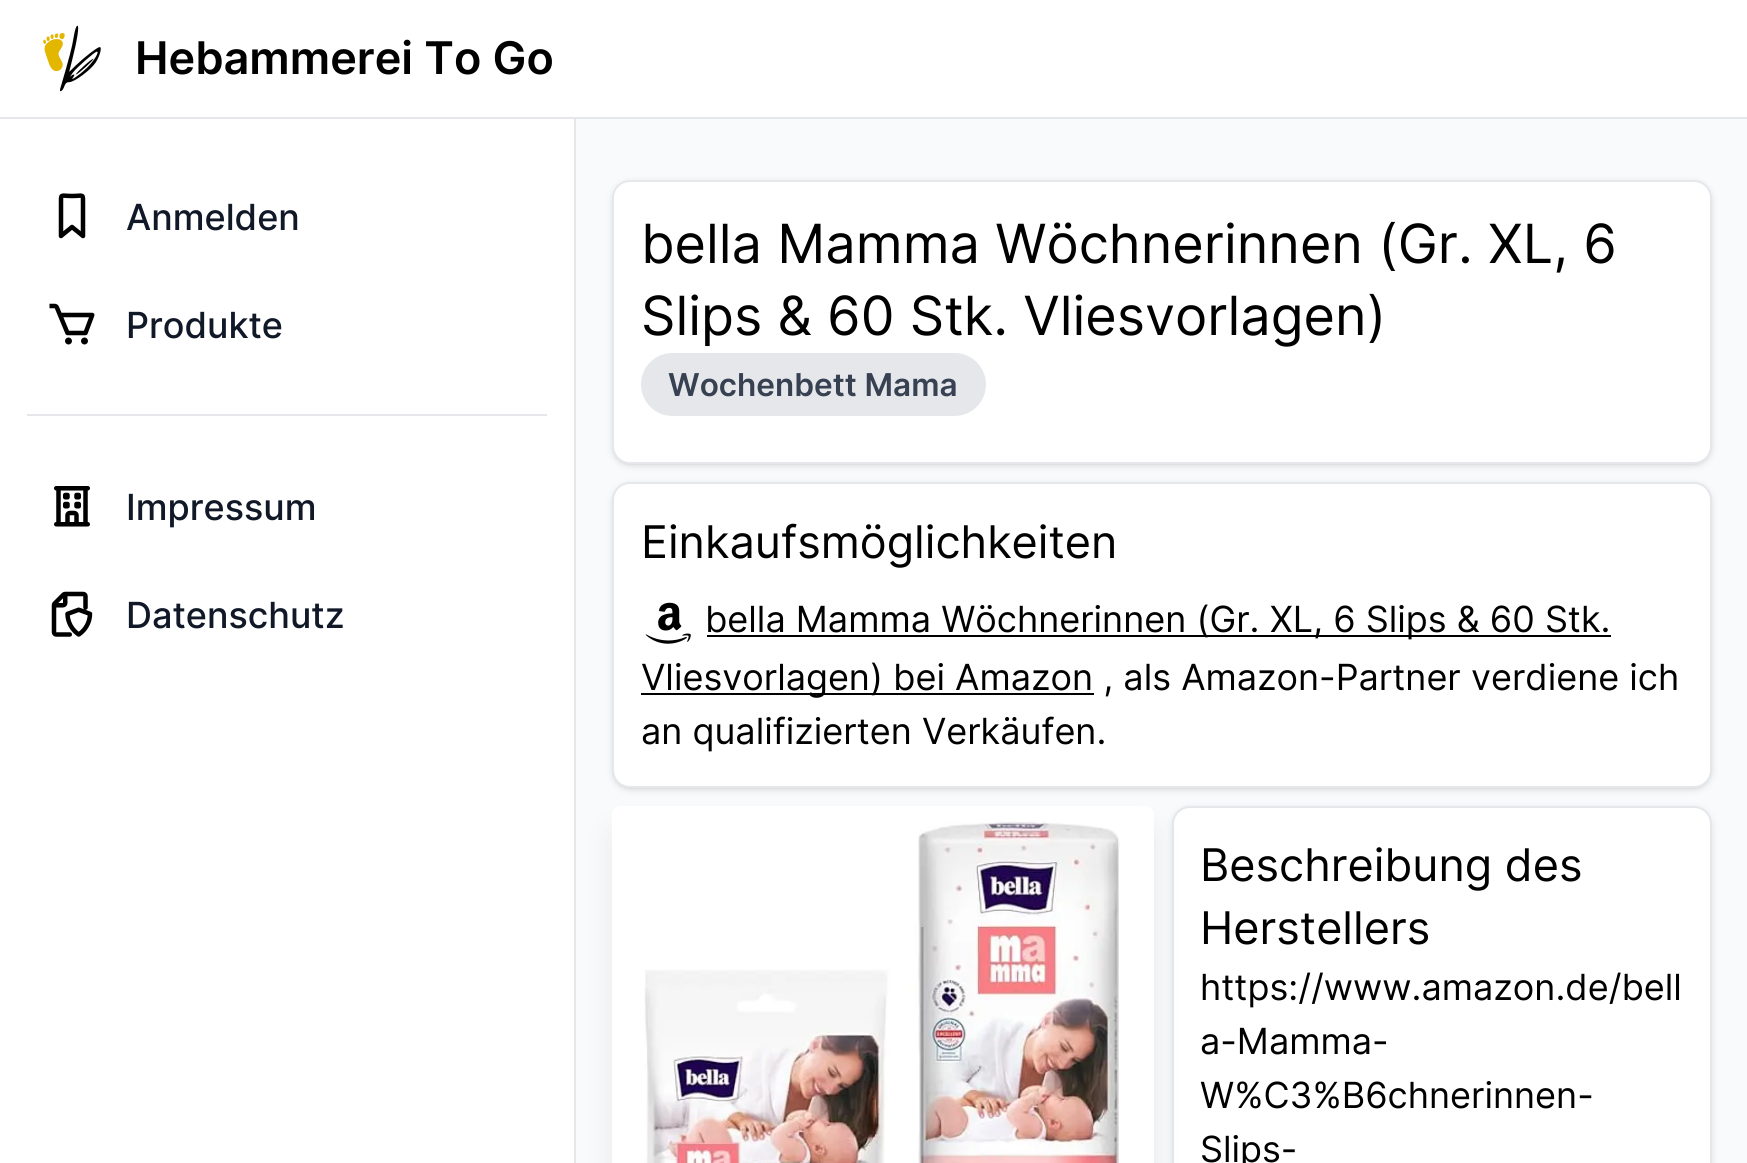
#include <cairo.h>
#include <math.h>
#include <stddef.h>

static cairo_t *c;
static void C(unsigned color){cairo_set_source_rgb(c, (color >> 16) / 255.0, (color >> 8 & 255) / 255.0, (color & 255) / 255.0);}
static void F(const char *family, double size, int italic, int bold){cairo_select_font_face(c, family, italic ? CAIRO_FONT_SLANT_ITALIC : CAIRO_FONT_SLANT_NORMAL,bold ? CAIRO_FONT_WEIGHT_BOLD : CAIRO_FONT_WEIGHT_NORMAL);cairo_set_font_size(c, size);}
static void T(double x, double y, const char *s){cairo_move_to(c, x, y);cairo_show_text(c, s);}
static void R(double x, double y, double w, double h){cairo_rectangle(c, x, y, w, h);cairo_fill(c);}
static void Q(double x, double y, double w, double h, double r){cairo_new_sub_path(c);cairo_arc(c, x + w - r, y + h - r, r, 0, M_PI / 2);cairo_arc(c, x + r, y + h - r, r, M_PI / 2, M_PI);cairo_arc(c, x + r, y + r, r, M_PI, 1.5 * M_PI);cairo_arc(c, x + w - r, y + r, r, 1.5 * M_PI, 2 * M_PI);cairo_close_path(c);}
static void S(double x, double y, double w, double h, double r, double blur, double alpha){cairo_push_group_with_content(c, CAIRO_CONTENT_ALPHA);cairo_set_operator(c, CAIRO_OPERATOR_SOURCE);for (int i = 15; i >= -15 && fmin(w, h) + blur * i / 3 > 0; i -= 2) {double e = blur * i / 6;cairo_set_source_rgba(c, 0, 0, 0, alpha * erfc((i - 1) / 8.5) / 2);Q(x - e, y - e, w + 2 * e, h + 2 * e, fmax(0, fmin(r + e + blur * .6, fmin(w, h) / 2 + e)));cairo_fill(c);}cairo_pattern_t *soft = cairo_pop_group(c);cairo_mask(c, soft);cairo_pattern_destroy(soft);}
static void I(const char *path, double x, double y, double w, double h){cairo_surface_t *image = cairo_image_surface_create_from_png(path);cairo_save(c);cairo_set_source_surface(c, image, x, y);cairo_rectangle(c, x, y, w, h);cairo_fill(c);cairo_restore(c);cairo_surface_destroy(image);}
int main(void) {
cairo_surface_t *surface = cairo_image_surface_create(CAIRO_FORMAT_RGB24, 1747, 1163);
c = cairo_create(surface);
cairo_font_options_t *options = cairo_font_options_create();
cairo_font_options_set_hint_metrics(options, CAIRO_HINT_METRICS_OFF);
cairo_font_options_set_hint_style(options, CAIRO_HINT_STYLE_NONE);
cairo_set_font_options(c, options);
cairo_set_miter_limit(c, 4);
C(0xf9fafb);
cairo_paint(c);
C(0xffffff);
R(0,0,1747,117);
C(0xe5e7eb);
R(0,117,1747,2);
I("1.png",43,25,58,67);
F("Inter SemiBold",45,0,0);
C(0x000000);
T(135,74,"Hebammerei To Go");
C(0x000000);
S(614,486,1096,302,16,2,.1);
S(612,484,1100,306,18,3.5,.1);
C(0xffffff);
Q(613,483,1098,304,17);
cairo_fill_preserve(c);
C(0xe5e7eb);
cairo_stroke(c);
C(0x000000);
S(1172,808,540,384,18,3.5,.1);
C(0xffffff);
Q(1173,807,538,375,17);
cairo_fill_preserve(c);
C(0xe5e7eb);
cairo_stroke(c);
C(0x000000);
S(619,835,529,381,2,17,.1);
C(0xffffff);
R(0,119,574,1044);
C(0xe5e7eb);
R(574,119,2,1044);
cairo_new_path(c);
cairo_move_to(c,83,236);
cairo_line_to(c,72,227);
cairo_line_to(c,61,236);
cairo_line_to(c,61,204);
cairo_curve_to(c,61,193,60,196,72,196);
cairo_curve_to(c,84,196,83,193,83,204);
cairo_close_path(c);
C(0x000000);
cairo_set_line_width(c,4.5);
cairo_set_line_cap(c,CAIRO_LINE_CAP_ROUND);
cairo_set_line_join(c,CAIRO_LINE_JOIN_ROUND);
cairo_stroke(c);
F("Inter Medium",36,0,0);
C(0x111827);
T(126,230,"Anmelden");
I("2.png",49,303,46,42);
T(126,338,"Produkte");
C(0xe5e7eb);
R(27,414,520,2);
I("3.png",54,486,36,41);
C(0x111827);
T(126,520,"Impressum");
I("4.png",51,591,42,46);
T(126,628,"Datenschutz");
C(0x000000);
S(614,185,1096,279,16,2,.1);
S(612,182,1100,284,18,3.5,.1);
C(0xffffff);
Q(613,181,1098,282,17);
cairo_fill_preserve(c);
C(0xe5e7eb);
cairo_set_line_width(c,2);
cairo_set_line_cap(c,CAIRO_LINE_CAP_BUTT);
cairo_set_line_join(c,CAIRO_LINE_JOIN_MITER);
cairo_stroke(c);
F("Inter",54,0,0);
C(0x000000);
T(641,263,"bella Mamma Wöchnerinnen (Gr. XL, 6");
T(641,335,"Slips & 60 Stk. Vliesvorlagen)");
C(0xe5e7eb);
Q(641,353,345,63,31.5);
cairo_fill(c);
F("Inter SemiBold",31.5,0,0);
C(0x374151);
T(668,396,"Wochenbett Mama");
F("Inter",45,0,0);
C(0x000000);
T(641,558,"Einkaufsmöglichkeiten");
I("5.png",645,602,46,42);
R(707,635,904,2);
F("Inter",36,0,0);
T(705,632,"bella Mamma Wöchnerinnen (Gr. XL, 6 Slips & 60 Stk.");
R(641,693,453,2);
T(641,690,"Vliesvorlagen) bei Amazon , als Amazon-Partner verdiene ich");
T(641,744,"an qualifizierten Verkäufen.");
C(0xffffff);
Q(612,806,542,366,9);
cairo_fill(c);
I("6.png",644,820,476,343);
F("Inter",45,0,0);
C(0x000000);
T(1200,881,"Beschreibung des");
T(1200,944,"Herstellers");
F("Inter",36,0,0);
T(1200,1000,"https://www.amazon.de/bell");
T(1200,1054,"a-Mamma-");
T(1200,1108,"W%C3%B6chnerinnen-");
T(1200,1162,"Slips-");
cairo_surface_write_to_png(surface, "o.png");
cairo_font_options_destroy(options);
cairo_destroy(c);
cairo_surface_destroy(surface);
return 0;
}
